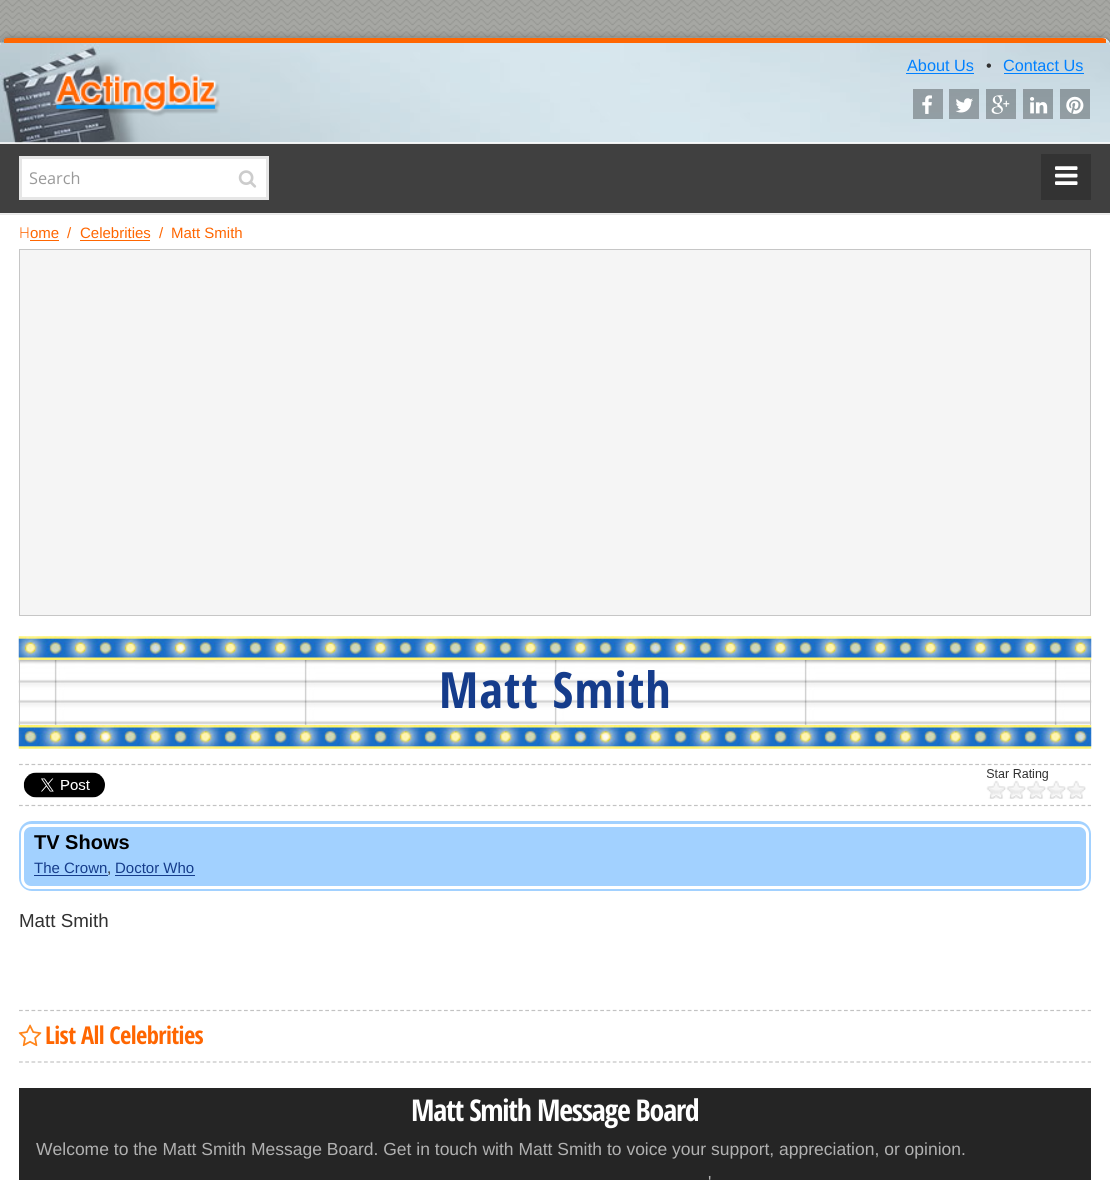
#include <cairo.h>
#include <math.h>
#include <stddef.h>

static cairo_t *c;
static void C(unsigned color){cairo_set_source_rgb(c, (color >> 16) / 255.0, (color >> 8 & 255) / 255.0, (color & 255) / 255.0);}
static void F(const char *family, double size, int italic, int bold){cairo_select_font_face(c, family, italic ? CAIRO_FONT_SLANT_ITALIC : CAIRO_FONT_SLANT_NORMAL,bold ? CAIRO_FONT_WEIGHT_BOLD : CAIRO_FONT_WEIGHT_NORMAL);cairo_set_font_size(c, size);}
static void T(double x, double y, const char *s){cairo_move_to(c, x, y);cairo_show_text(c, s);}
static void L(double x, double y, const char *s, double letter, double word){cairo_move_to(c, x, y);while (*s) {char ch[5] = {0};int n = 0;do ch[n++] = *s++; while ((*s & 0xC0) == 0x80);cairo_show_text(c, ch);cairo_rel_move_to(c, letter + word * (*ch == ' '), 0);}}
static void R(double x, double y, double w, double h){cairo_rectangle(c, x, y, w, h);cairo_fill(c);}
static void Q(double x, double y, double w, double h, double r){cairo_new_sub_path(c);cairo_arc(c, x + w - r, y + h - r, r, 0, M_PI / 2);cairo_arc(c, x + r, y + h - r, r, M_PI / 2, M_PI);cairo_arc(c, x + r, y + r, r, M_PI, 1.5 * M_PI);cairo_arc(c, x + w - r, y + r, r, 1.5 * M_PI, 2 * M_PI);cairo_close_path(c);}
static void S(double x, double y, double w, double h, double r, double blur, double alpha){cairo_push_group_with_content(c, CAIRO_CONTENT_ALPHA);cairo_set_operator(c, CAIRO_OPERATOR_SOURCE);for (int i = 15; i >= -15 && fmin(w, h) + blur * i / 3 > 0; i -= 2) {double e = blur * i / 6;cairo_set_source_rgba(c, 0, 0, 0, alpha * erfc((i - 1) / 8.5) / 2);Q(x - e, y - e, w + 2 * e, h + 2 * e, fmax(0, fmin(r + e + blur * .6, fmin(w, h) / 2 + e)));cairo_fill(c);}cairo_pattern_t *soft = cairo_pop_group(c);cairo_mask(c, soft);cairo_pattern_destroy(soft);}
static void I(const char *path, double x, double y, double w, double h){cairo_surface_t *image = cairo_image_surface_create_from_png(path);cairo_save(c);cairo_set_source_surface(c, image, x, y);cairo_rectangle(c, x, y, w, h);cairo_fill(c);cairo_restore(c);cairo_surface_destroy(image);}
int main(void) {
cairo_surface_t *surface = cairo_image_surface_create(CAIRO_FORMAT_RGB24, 1110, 1180);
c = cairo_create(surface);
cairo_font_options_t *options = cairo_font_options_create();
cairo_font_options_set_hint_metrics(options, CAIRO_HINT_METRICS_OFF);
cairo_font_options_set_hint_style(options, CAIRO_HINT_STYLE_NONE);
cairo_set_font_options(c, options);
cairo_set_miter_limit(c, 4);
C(0xffffff);
cairo_paint(c);
I("1.png",0,0,1110,45);
C(0x000000);
S(0,38,1110,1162,8,4,.3);
C(0xffffff);
Q(0,38,1110,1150,8);
cairo_fill(c);
cairo_new_path(c);
cairo_move_to(c,8,38);
cairo_line_to(c,1102,38);
cairo_curve_to(c,1106.5,38,1110,41.5,1110,46);
cairo_line_to(c,1110,143);
cairo_line_to(c,0,143);
cairo_line_to(c,0,46);
cairo_curve_to(c,0,41.5,3.5,38,8,38);
cairo_close_path(c);
cairo_fill(c);
I("2.png",0,37,1110,106);
cairo_save(c);
Q(0,38,1110,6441,8);
cairo_clip(c);
C(0xff6601);
R(4,38,1102,5);
cairo_restore(c);
F("Liberation Sans",16.25,0,0);
C(0x0080ff);
T(907,71,"About Us");
R(906,73,68,1);
C(0x313131);
T(986,71,"•");
C(0x0080ff);
T(1003,71,"Contact Us");
R(1004,73,80,1);
cairo_set_source_rgba(c,0,0,0,0.3);
R(913,89,30,30);
I("3.png",922,95,10,19);
R(949,89,30,30);
I("4.png",955,98,18,15);
R(986,89,30,30);
I("5.png",991,95,19,19);
R(1023,89,30,30);
I("6.png",1030,97,18,17);
R(1060,89,30,30);
I("7.png",1066,96,18,18);
I("8.png",53,73,167,44);
C(0xe8e8e8);
R(0,214,1110,1);
C(0x404040);
R(0,144,1110,69);
C(0xeeeeee);
R(0,143,1110,1);
R(0,213,1110,1);
C(0xffffff);
cairo_rectangle(c,20.5,157.5,247,41);
cairo_fill_preserve(c);
C(0xe6e6e6);
cairo_set_line_width(c,3);
cairo_stroke(c);
F("Open Sans",16.25,0,0);
C(0x999999);
T(29,184,"Search");
I("9.png",238,170,19,18);
C(0x333333);
R(1041,154,50,46);
I("10.png",1055,166,23,19);
F("Noto Sans Light",15,0,0);
C(0xff6601);
T(19,238,"H");
F("Liberation Sans",15,0,0);
T(30,238,"ome");
R(30,240,29,1);
T(67,238,"/");
T(80,238,"Celebrities");
R(80,240,70,1);
T(159,238,"/");
T(171,238,"Matt Smith");
C(0xf5f5f5);
cairo_rectangle(c,19.5,249.5,1071,366);
cairo_fill_preserve(c);
C(0xc6c6c6);
cairo_set_line_width(c,1);
cairo_stroke(c);
I("11.png",18,636,1074,24);
I("12.png",18,660,1074,65);
C(0xc8c8c8);
R(1090,660,1,65);
R(19,660,1,65);
F("Open Sans Condensed",50,0,1);
C(0x153c8b);
L(439,708,"Matt Smith",1.25,0);
I("13.png",18,725,1074,24);
cairo_new_path(c);
cairo_move_to(c,19,764.5);
cairo_line_to(c,1091,764.5);
C(0xc3c3c3);
cairo_set_line_width(c,1.2);
cairo_set_dash(c,(double[]){3.75,2.5},2,0);
cairo_stroke(c);
cairo_new_path(c);
cairo_move_to(c,19,805.5);
cairo_line_to(c,1091,805.5);
cairo_stroke(c);
I("14.png",23,772,82,26);
I("15.png",986,769,100,30);
C(0xa2d1ff);
Q(20.5,822.5,1069,67,11.5);
cairo_fill_preserve(c);
cairo_set_line_width(c,3);
cairo_set_dash(c,NULL,0,0);
cairo_stroke(c);
Q(22.5,825.5,1065,62,8.5);
C(0xffffff);
cairo_stroke(c);
F("Liberation Sans",20,0,1);
C(0x000000);
T(34,849,"TV Shows");
F("Liberation Sans",15,0,0);
C(0x153c8b);
T(34,873,"The Crown");
R(34,875,74,1);
C(0x313131);
T(107,873,",");
C(0x153c8b);
T(115,873,"Doctor Who");
R(115,875,80,1);
F("Liberation Sans",18.75,0,0);
C(0x313131);
T(19,927,"Matt Smith");
cairo_new_path(c);
cairo_move_to(c,19,1010.5);
cairo_line_to(c,1091,1010.5);
C(0xc3c3c3);
cairo_set_line_width(c,1.2);
cairo_set_dash(c,(double[]){3.75,2.5},2,0);
cairo_stroke(c);
I("16.png",18,1024,24,23);
F("Open Sans Condensed",24.5,0,1);
C(0xff6601);
L(45,1044,"List All Celebrities",-.6,0);
cairo_new_path(c);
cairo_move_to(c,19,1062);
cairo_line_to(c,1091,1062);
C(0xc3c3c3);
cairo_stroke(c);
C(0x252525);
R(19,1088,1072,92);
F("Open Sans Condensed",30,0,1);
C(0xffffff);
L(411,1121,"Matt Smith Message Board",-1.25,0);
F("Liberation Sans",17.5,0,0);
C(0xb1b1b1);
T(36,1155,"Welcome to the Matt Smith Message Board. Get in touch with Matt Smith to voice your support, appreciation, or opinion.");
T(708,1188,"'");
cairo_surface_write_to_png(surface, "o.png");
cairo_font_options_destroy(options);
cairo_destroy(c);
cairo_surface_destroy(surface);
return 0;
}
